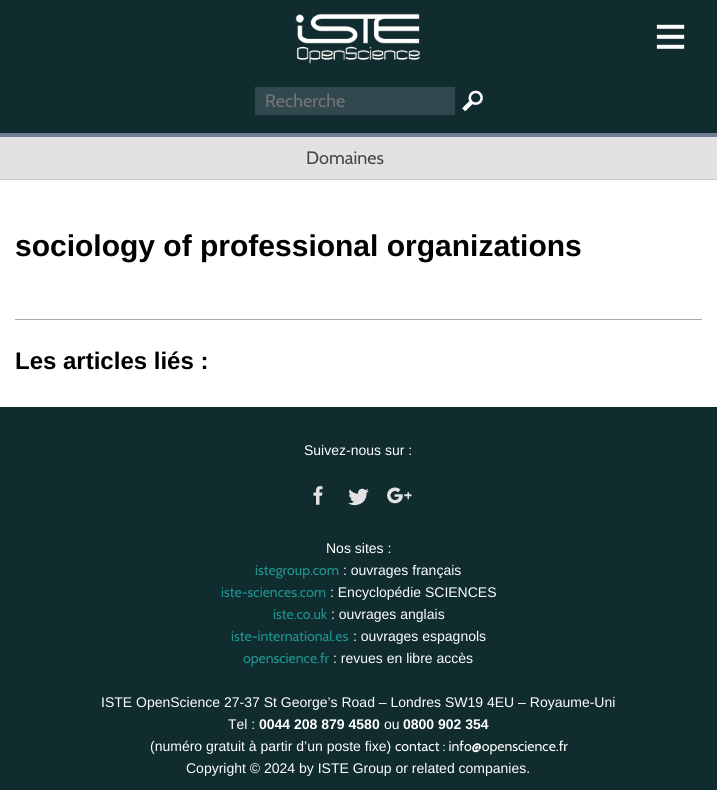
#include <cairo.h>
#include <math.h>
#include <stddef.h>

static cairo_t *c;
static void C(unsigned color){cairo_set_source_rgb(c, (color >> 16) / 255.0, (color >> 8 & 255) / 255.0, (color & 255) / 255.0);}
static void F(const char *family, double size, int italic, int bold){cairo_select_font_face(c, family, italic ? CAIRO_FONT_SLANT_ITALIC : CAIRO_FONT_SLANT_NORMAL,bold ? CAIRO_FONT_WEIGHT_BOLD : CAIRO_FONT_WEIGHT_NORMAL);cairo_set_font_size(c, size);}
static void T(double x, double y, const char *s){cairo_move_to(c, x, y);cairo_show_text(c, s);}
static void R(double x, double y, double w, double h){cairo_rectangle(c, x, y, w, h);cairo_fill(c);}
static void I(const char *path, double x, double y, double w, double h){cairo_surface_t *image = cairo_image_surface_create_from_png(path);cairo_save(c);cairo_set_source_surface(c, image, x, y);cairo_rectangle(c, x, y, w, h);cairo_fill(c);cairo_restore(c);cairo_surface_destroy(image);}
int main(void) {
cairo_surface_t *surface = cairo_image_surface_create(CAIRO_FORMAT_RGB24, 717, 790);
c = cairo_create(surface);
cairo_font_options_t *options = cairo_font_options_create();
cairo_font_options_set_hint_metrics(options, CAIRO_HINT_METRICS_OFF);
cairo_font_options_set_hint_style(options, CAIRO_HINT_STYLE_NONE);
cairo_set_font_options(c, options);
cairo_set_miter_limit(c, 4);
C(0xe2e2e2);
cairo_paint(c);
C(0x102c2f);
R(0,0,717,133);
C(0x6e7d95);
R(0,133,717,4);
I("1.png",295,13,125,51);
I("2.png",656,24,29,25);
C(0x31494e);
R(255,87,200,28);
F("Cabin",18,0,0);
C(0x757575);
T(265,107,"Recherche");
I("3.png",462,90,21,22);
C(0x474747);
T(306,164,"Domaines");
C(0xffffff);
R(0,180,717,227);
C(0xc8c8c8);
R(0,179,717,1);
F("Liberation Sans",30,0,1);
C(0x000000);
T(15,256,"sociology of professional organizations");
C(0xaaaaaa);
R(15,319,687,1);
F("Liberation Sans",24,0,1);
C(0x000000);
T(15,369,"Les articles liés :");
C(0x102c2f);
R(0,407,717,383);
F("Liberation Sans",14,0,0);
C(0xffffff);
T(304,455,"Suivez-nous sur :");
I("4.png",313,486,10,19);
I("5.png",348,488,21,18);
I("6.png",387,487,25,17);
T(326,553,"Nos sites :");
F("Cabin",14,0,0);
C(0x1e9691);
T(255,575,"istegroup.com");
F("Liberation Sans",14,0,0);
C(0xffffff);
T(343,575,": ouvrages français");
F("Cabin",14,0,0);
C(0x1e9691);
T(221,597,"iste-sciences.com");
F("Liberation Sans",14,0,0);
C(0xffffff);
T(330,597,": Encyclopédie SCIENCES");
F("Cabin",14,0,0);
C(0x1e9691);
T(273,619,"iste.co.uk");
F("Liberation Sans",14,0,0);
C(0xffffff);
T(331,619,": ouvrages anglais");
F("Cabin",14,0,0);
C(0x1e9691);
T(231,641,"iste-international.es");
F("Liberation Sans",14,0,0);
C(0xffffff);
T(353,641,": ouvrages espagnols");
F("Cabin",14,0,0);
C(0x1e9691);
T(243,663,"openscience.fr");
F("Liberation Sans",14,0,0);
C(0xffffff);
T(333,663,": revues en libre accès");
T(101,707,"ISTE OpenScience 27-37 St George’s Road – Londres SW19 4EU – Royaume-Uni");
T(228,729,"Tel :");
F("Liberation Sans",14,0,1);
T(259,729,"0044 208 879 4580");
F("Liberation Sans",14,0,0);
T(384,729,"ou");
F("Liberation Sans",14,0,1);
T(403,729,"0800 902 354");
F("Liberation Sans",14,0,0);
T(150,751,"(numéro gratuit à partir d’un poste fixe)");
F("Cabin",14,0,0);
T(395,751,"contact : info@openscience.fr");
F("Liberation Sans",14,0,0);
T(186,773,"Copyright © 2024 by ISTE Group or related companies.");
cairo_surface_write_to_png(surface, "o.png");
cairo_font_options_destroy(options);
cairo_destroy(c);
cairo_surface_destroy(surface);
return 0;
}
